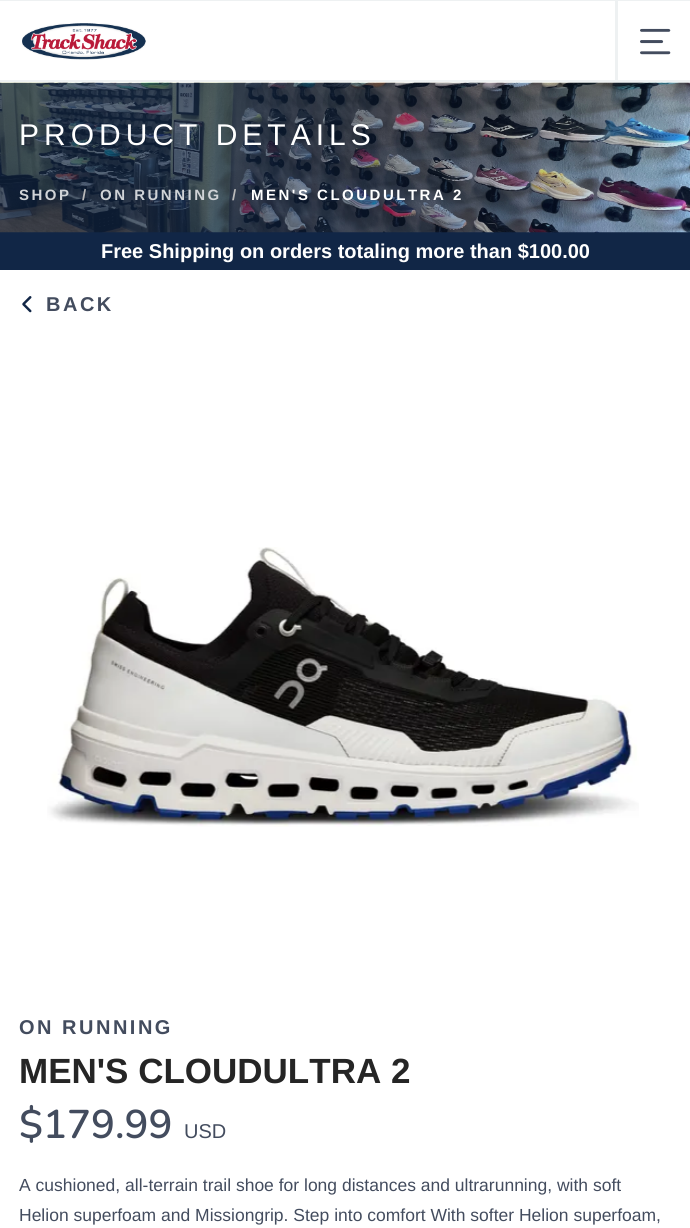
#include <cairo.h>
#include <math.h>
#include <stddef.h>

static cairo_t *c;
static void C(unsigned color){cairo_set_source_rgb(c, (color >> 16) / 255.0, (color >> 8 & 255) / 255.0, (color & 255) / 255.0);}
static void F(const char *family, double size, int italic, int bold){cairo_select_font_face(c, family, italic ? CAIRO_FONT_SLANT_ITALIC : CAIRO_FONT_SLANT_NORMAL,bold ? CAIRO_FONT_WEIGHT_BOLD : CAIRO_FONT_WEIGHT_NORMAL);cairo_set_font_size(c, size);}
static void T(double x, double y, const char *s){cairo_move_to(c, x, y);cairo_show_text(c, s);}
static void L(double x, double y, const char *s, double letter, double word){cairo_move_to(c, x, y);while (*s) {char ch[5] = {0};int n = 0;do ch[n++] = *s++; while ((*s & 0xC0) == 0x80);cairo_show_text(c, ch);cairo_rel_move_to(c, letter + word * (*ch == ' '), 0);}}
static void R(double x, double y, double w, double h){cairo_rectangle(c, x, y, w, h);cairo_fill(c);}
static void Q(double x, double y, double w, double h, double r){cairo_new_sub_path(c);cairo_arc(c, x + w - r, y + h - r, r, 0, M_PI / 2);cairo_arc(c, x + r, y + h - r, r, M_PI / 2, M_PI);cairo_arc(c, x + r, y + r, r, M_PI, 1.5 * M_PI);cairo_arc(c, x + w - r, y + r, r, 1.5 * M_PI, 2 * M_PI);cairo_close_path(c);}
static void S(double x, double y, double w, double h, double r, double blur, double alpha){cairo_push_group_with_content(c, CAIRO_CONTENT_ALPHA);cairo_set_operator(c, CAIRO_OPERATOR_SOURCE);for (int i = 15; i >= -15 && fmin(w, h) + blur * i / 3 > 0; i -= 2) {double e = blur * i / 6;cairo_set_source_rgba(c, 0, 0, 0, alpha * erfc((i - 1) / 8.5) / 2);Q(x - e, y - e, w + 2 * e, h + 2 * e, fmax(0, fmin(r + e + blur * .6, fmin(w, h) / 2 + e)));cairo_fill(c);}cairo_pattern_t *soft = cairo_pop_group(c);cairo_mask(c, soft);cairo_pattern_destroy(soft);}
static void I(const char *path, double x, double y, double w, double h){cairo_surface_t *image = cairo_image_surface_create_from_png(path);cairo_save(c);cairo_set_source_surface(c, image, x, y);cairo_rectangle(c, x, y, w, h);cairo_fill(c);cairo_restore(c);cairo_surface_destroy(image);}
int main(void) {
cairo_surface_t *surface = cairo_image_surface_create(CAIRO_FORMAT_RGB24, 690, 1228);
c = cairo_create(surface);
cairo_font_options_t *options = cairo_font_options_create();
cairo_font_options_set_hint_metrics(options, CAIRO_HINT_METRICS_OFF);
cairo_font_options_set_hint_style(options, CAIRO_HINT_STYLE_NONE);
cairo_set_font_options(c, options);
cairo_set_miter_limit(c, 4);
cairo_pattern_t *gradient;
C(0xffffff);
cairo_paint(c);
C(0xeef1f2);
R(0,0,690,1);
R(0,80,690,3);
I("1.png",22,23,124,37);
R(615,1,3,79);
I("2.png",640,28,31,27);
I("5.png",22,296,10,17);
cairo_save(c);
Q(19,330,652,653,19);
cairo_clip(c);
cairo_set_fill_rule(c,CAIRO_FILL_RULE_EVEN_ODD);
cairo_new_path(c);
cairo_move_to(c,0,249);
cairo_line_to(c,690,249);
cairo_line_to(c,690,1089);
cairo_line_to(c,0,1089);
cairo_close_path(c);
cairo_move_to(c,-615,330);
cairo_line_to(c,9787,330);
cairo_curve_to(c,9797.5,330,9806,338.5,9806,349);
cairo_line_to(c,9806,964);
cairo_curve_to(c,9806,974.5,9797.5,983,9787,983);
cairo_line_to(c,-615,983);
cairo_curve_to(c,-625.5,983,-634,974.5,-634,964);
cairo_line_to(c,-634,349);
cairo_curve_to(c,-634,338.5,-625.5,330,-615,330);
cairo_close_path(c);
cairo_clip(c);
C(0x000000);
S(-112,343,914,652,19,31,.3);
cairo_restore(c);
C(0x112646);
R(0,232,690,38);
I("3.png",0,82,690,151);
gradient = cairo_pattern_create_linear(0,158,690,157);
cairo_pattern_add_color_stop_rgba(gradient,.3,0.067,0.149,0.275,.7);
cairo_pattern_add_color_stop_rgba(gradient,1,0.067,0.149,0.275,.07);
cairo_set_source(c,gradient);
cairo_pattern_destroy(gradient);
R(0,83,690,150);
F("Liberation Sans",30,0,0);
C(0xffffff);
L(19,145,"PRODUCT DETAILS",5,0);
F("Liberation Sans",15,0,1);
C(0xd0d3d7);
L(19,200,"SHOP",2.5,0);
C(0xbbbbbb);
L(82,200,"/",2.5,0);
C(0xd0d3d7);
L(100,200,"ON RUNNING",2.5,0);
C(0xbbbbbb);
L(232,200,"/",2.5,0);
C(0xffffff);
L(251,200,"MEN'S CLOUDULTRA 2",2.5,0);
F("Liberation Sans",20,0,1);
T(101,258,"Free Shipping on orders totaling more than $100.00");
I("4.png",47,547,592,280);
C(0x434c5e);
L(46,311,"BACK",2.5,0);
L(19,1034,"ON RUNNING",2.5,0);
F("Liberation Sans",35,0,1);
C(0x252525);
T(19,1083,"MEN'S CLOUDULTRA 2");
F("Nunito SemiBold",40,0,0);
C(0x434c5e);
T(19,1138,"$179.99");
F("Liberation Sans",20,0,0);
T(184,1138,"USD");
F("Liberation Sans",17.5,0,0);
T(19,1191,"A cushioned, all-terrain trail shoe for long distances and ultrarunning, with soft");
T(19,1221,"Helion superfoam and Missiongrip. Step into comfort With softer Helion superfoam,");
cairo_surface_write_to_png(surface, "o.png");
cairo_font_options_destroy(options);
cairo_destroy(c);
cairo_surface_destroy(surface);
return 0;
}
